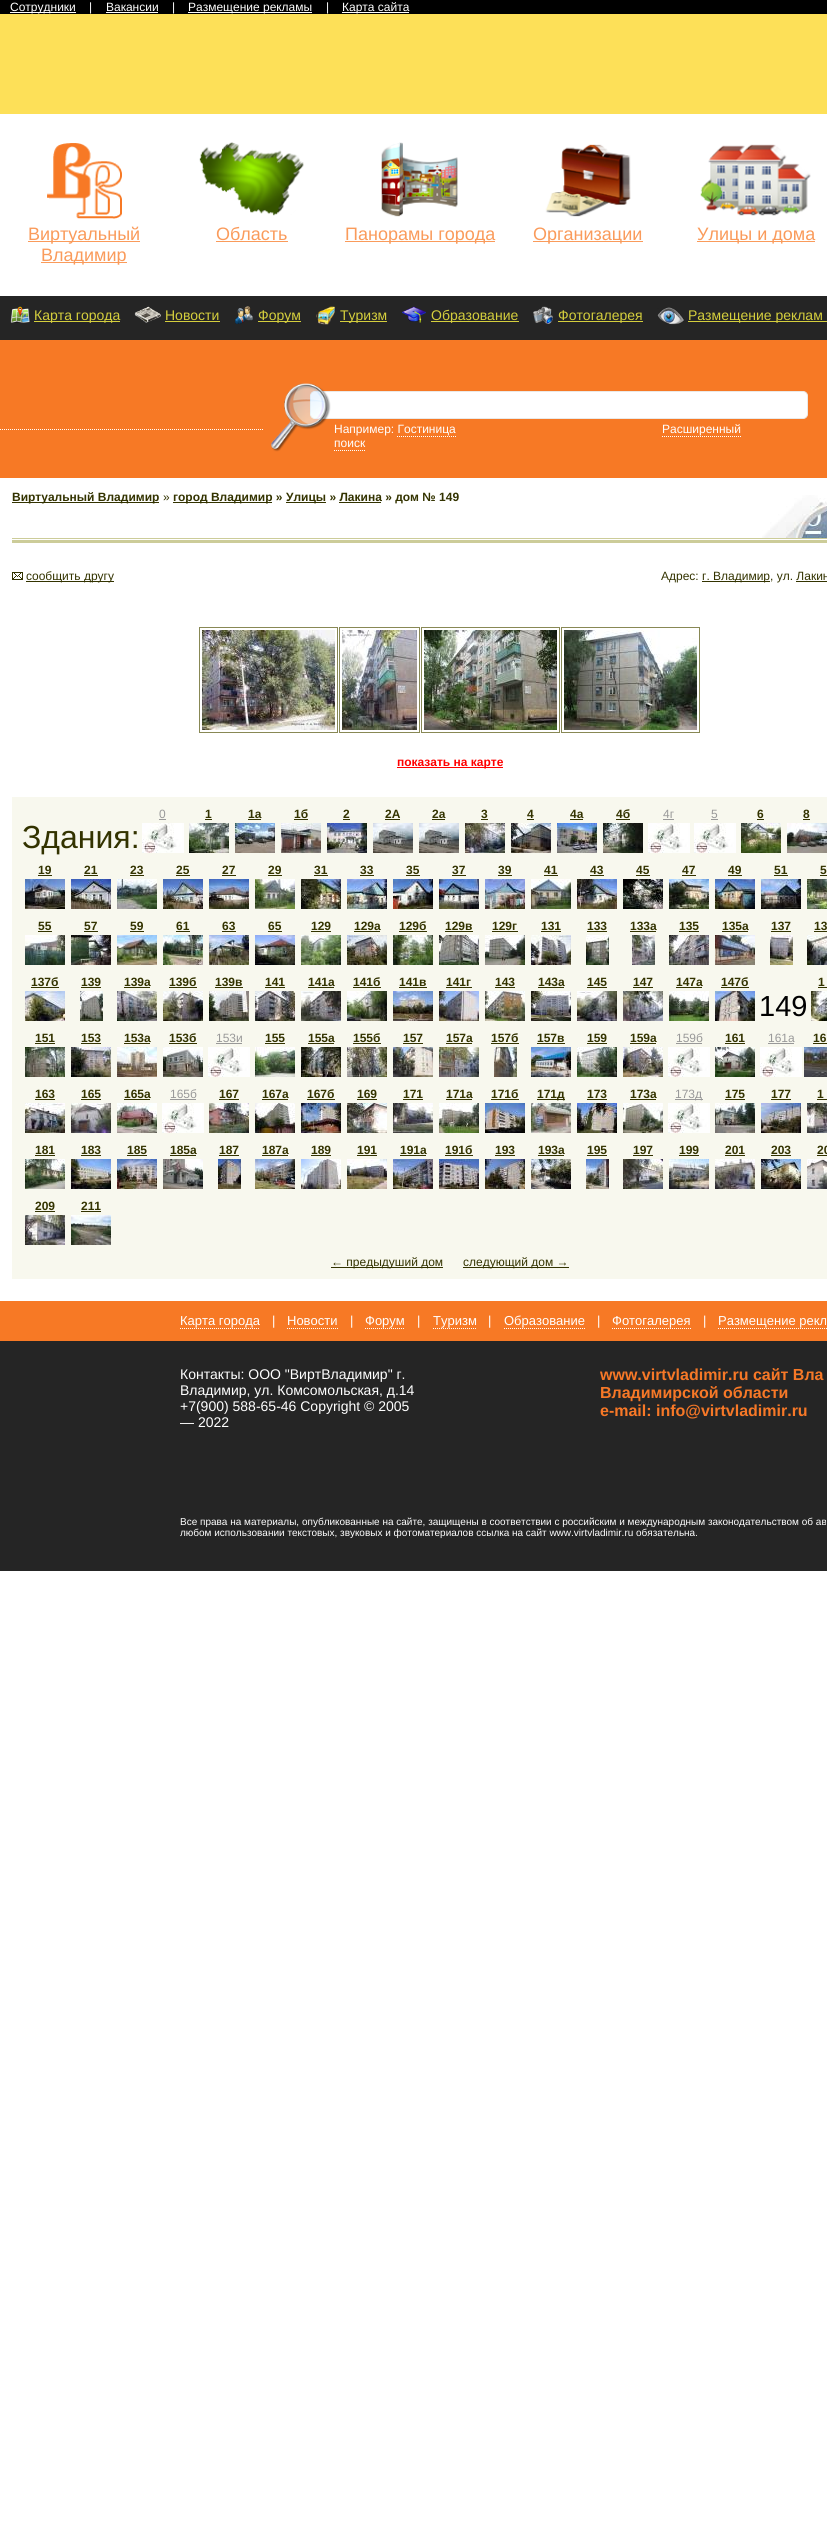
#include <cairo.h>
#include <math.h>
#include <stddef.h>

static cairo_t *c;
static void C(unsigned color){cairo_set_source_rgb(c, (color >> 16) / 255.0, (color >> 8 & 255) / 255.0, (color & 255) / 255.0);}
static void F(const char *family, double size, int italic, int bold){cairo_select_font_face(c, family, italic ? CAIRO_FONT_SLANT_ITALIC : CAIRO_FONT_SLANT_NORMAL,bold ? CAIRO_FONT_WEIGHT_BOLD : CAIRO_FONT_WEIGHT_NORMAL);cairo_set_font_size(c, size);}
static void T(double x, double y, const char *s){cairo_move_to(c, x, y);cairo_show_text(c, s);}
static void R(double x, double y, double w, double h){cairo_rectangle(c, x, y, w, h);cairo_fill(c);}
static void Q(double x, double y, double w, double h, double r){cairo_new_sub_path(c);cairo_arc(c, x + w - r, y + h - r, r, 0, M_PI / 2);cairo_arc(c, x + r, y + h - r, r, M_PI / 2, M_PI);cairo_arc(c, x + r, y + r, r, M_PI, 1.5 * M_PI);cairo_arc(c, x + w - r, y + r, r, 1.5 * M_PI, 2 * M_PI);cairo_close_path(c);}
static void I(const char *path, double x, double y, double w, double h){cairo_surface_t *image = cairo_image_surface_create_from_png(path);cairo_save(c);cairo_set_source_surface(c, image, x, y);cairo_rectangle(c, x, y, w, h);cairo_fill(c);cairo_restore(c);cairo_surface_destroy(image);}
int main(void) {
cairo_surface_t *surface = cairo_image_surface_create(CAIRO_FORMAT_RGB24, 827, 2546);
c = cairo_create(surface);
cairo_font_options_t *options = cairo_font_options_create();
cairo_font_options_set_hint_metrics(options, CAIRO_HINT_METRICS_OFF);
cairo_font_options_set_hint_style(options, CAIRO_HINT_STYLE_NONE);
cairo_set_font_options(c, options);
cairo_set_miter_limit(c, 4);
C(0xffffff);
cairo_paint(c);
C(0x000000);
R(0,0,827,14);
C(0xffffff);
R(10,12,66,1);
F("Liberation Sans",12,0,0);
T(10,11,"Сотрудники");
T(89,11,"|");
T(106,11,"Вакансии");
R(106,12,52,1);
T(172,11,"|");
R(188,12,124,1);
T(188,11,"Размещение рекламы");
T(326,11,"|");
R(342,12,67,1);
T(342,11,"Карта сайта");
C(0xfde058);
R(0,14,827,100);
I("1.png",47,143,75,76);
C(0xfa9b5b);
R(28,241,112,1);
F("Liberation Sans",18,0,0);
T(28,240,"Виртуальный");
R(41,262,86,1);
T(41,261,"Владимир");
I("2.png",199,142,105,74);
T(216,240,"Область");
R(216,241,72,1);
I("3.png",381,142,77,75);
R(345,241,150,1);
T(345,240,"Панорамы города");
I("4.png",545,144,86,73);
R(533,241,110,1);
T(533,240,"Организации");
I("5.png",700,144,111,72);
R(697,241,118,1);
T(697,240,"Улицы и дома");
C(0x252525);
R(0,296,827,44);
I("6.png",10,306,20,17);
C(0xd5cf3d);
R(34,321,86,1);
F("Liberation Sans",14,0,0);
T(34,320,"Карта города");
I("7.png",134,306,27,17);
T(165,320,"Новости");
R(165,321,55,1);
I("8.png",235,306,18,18);
R(258,321,43,1);
T(258,320,"Форум");
I("9.png",316,306,19,19);
R(340,321,47,1);
T(340,320,"Туризм");
I("10.png",402,306,24,17);
R(431,321,88,1);
T(431,320,"Образование");
I("11.png",533,306,20,18);
R(558,321,85,1);
T(558,320,"Фотогалерея");
I("12.png",657,307,27,18);
R(688,321,139,1);
T(688,320,"Размещение реклам");
C(0xf77925);
R(0,340,827,138);
cairo_new_path(c);
cairo_move_to(c,0,429.5);
cairo_line_to(c,264,429.5);
C(0xffffff);
cairo_set_line_width(c,1);
cairo_set_dash(c,(double[]){1,1},2,0);
cairo_stroke(c);
Q(310.5,391.5,497,27,4.5);
cairo_fill_preserve(c);
C(0xeae9e7);
cairo_set_dash(c,NULL,0,0);
cairo_stroke(c);
I("13.png",271,383,60,69);
F("Liberation Sans",12,0,0);
C(0xffffff);
T(334,433,"Например: Гостиница");
T(662,433,"Расширенный");
cairo_new_path(c);
cairo_move_to(c,662,436.5);
cairo_line_to(c,741,436.5);
cairo_set_dash(c,(double[]){1,1},2,0);
cairo_stroke(c);
cairo_new_path(c);
cairo_move_to(c,397,436.5);
cairo_line_to(c,456,436.5);
cairo_stroke(c);
T(334,447,"поиск");
cairo_new_path(c);
cairo_move_to(c,334,450.5);
cairo_line_to(c,365,450.5);
cairo_stroke(c);
C(0xcccc99);
R(12,538,815,1);
C(0x333300);
R(12,502,147,1);
F("Liberation Sans",12,0,1);
T(12,501,"Виртуальный Владимир");
F("Liberation Sans",12,0,0);
T(163,501,"»");
R(173,502,99,1);
F("Liberation Sans",12,0,1);
T(173,501,"город Владимир »");
R(286,502,40,1);
T(286,501,"Улицы » Лакина » дом № 149");
R(339,502,42,1);
I("14.png",762,495,65,43);
C(0xcccc99);
R(12,540,815,3);
I("15.png",12,572,11,8);
C(0x333300);
R(26,581,88,1);
F("Liberation Sans",12,0,0);
T(26,580,"cообщить другу");
T(661,580,"Адрес: г.");
R(702,581,68,1);
T(713,580,"Владимир, ул. Лакин");
R(796,581,31,1);
cairo_rectangle(c,199.5,627.5,138,105);
C(0x888855);
cairo_set_dash(c,NULL,0,0);
cairo_stroke(c);
cairo_rectangle(c,339.5,627.5,80,105);
cairo_stroke(c);
cairo_rectangle(c,421.5,627.5,138,105);
cairo_stroke(c);
cairo_rectangle(c,561.5,627.5,138,105);
cairo_stroke(c);
I("16.png",202,630,133,100);
I("17.png",342,630,75,100);
I("18.png",424,630,133,100);
I("19.png",564,630,133,100);
C(0xff0000);
R(397,767,106,1);
F("Liberation Sans",12,0,1);
T(397,766,"показать на карте");
C(0xf8f8ee);
R(12,797,815,482);
F("Liberation Sans",12,0,0);
C(0x999999);
T(159,818,"0");
R(159,819,7,1);
I("20.png",142,823,42,30);
F("Liberation Sans",12,0,1);
C(0x333300);
T(205,818,"1");
R(205,819,7,1);
I("21.png",189,823,40,30);
T(248,818,"1а");
R(248,819,13,1);
I("22.png",235,823,40,30);
T(294,818,"1б");
R(294,819,14,1);
I("23.png",281,823,40,30);
T(343,818,"2");
R(343,819,7,1);
I("24.png",327,823,40,30);
T(385,818,"2A");
R(385,819,15,1);
I("25.png",373,823,40,30);
T(432,818,"2а");
R(432,819,13,1);
I("26.png",419,823,40,30);
T(481,818,"3");
R(481,819,7,1);
I("27.png",465,823,40,30);
T(527,818,"4");
R(527,819,7,1);
I("28.png",511,823,40,30);
T(570,818,"4а");
R(570,819,13,1);
I("29.png",557,823,40,30);
T(616,818,"4б");
R(616,819,14,1);
I("30.png",603,823,40,30);
F("Liberation Sans",12,0,0);
C(0x999999);
T(663,818,"4г");
R(663,819,11,1);
I("20.png",648,823,42,30);
T(711,818,"5");
R(711,819,7,1);
I("20.png",694,823,42,30);
F("Liberation Sans",12,0,1);
C(0x333300);
T(757,818,"6");
R(757,819,7,1);
I("31.png",741,823,40,30);
T(803,818,"8");
R(803,819,7,1);
I("32.png",787,823,40,30);
F("Liberation Sans",32,0,0);
T(22,848,"Здания:");
F("Liberation Sans",12,0,1);
T(38,874,"19");
R(38,875,14,1);
I("33.png",25,879,40,30);
T(84,874,"21");
R(84,875,14,1);
I("34.png",71,879,40,30);
T(130,874,"23");
R(130,875,14,1);
I("35.png",117,879,40,30);
T(176,874,"25");
R(176,875,14,1);
I("36.png",163,879,40,30);
T(222,874,"27");
R(222,875,14,1);
I("37.png",209,879,40,30);
T(268,874,"29");
R(268,875,14,1);
I("38.png",255,879,40,30);
T(314,874,"31");
R(314,875,14,1);
I("39.png",301,879,40,30);
T(360,874,"33");
R(360,875,14,1);
I("40.png",347,879,40,30);
T(406,874,"35");
R(406,875,14,1);
I("41.png",393,879,40,30);
T(452,874,"37");
R(452,875,14,1);
I("42.png",439,879,40,30);
T(498,874,"39");
R(498,875,14,1);
I("43.png",485,879,40,30);
T(544,874,"41");
R(544,875,14,1);
I("44.png",531,879,40,30);
T(590,874,"43");
R(590,875,14,1);
I("45.png",577,879,40,30);
T(636,874,"45");
R(636,875,14,1);
I("46.png",623,879,40,30);
T(682,874,"47");
R(682,875,14,1);
I("47.png",669,879,40,30);
T(728,874,"49");
R(728,875,14,1);
I("48.png",715,879,40,30);
T(774,874,"51");
R(774,875,14,1);
I("49.png",761,879,40,30);
T(820,874,"5");
R(820,875,7,1);
I("50.png",807,879,20,30);
T(38,930,"55");
R(38,931,14,1);
I("51.png",25,935,40,30);
T(84,930,"57");
R(84,931,14,1);
I("52.png",71,935,40,30);
T(130,930,"59");
R(130,931,14,1);
I("53.png",117,935,40,30);
T(176,930,"61");
R(176,931,14,1);
I("54.png",163,935,40,30);
T(222,930,"63");
R(222,931,14,1);
I("55.png",209,935,40,30);
T(268,930,"65");
R(268,931,14,1);
I("56.png",255,935,40,30);
T(311,930,"129");
R(311,931,20,1);
I("57.png",301,935,40,30);
T(354,930,"129а");
R(354,931,26,1);
I("58.png",347,935,40,30);
T(399,930,"129б");
R(399,931,28,1);
I("59.png",393,935,40,30);
T(445,930,"129в");
R(445,931,28,1);
I("60.png",439,935,40,30);
T(492,930,"129г");
R(492,931,26,1);
I("61.png",485,935,40,30);
T(541,930,"131");
R(541,931,20,1);
I("62.png",531,935,40,30);
T(587,930,"133");
R(587,931,20,1);
I("63.png",586,935,23,30);
T(630,930,"133а");
R(630,931,26,1);
I("64.png",632,935,23,30);
T(679,930,"135");
R(679,931,20,1);
I("65.png",669,935,40,30);
T(722,930,"135а");
R(722,931,26,1);
I("66.png",715,935,40,30);
T(771,930,"137");
R(771,931,20,1);
I("67.png",770,935,23,30);
T(814,930,"13");
R(814,931,13,1);
I("68.png",807,935,20,30);
T(31,986,"137б");
R(31,987,28,1);
I("69.png",25,991,40,30);
T(81,986,"139");
R(81,987,20,1);
I("70.png",80,991,23,30);
T(124,986,"139а");
R(124,987,26,1);
I("71.png",117,991,40,30);
T(169,986,"139б");
R(169,987,28,1);
I("72.png",163,991,40,30);
T(215,986,"139в");
R(215,987,28,1);
I("73.png",209,991,40,30);
T(265,986,"141");
R(265,987,20,1);
I("74.png",255,991,40,30);
T(308,986,"141а");
R(308,987,26,1);
I("75.png",301,991,40,30);
T(353,986,"141б");
R(353,987,28,1);
I("76.png",347,991,40,30);
T(399,986,"141в");
R(399,987,28,1);
I("77.png",393,991,40,30);
T(446,986,"141г");
R(446,987,26,1);
I("78.png",439,991,40,30);
T(495,986,"143");
R(495,987,20,1);
I("79.png",485,991,40,30);
T(538,986,"143а");
R(538,987,26,1);
I("80.png",531,991,40,30);
T(587,986,"145");
R(587,987,20,1);
I("81.png",577,991,40,30);
T(633,986,"147");
R(633,987,20,1);
I("82.png",623,991,40,30);
T(676,986,"147а");
R(676,987,26,1);
I("83.png",669,991,40,30);
T(721,986,"147б");
R(721,987,28,1);
I("84.png",715,991,40,30);
T(818,986,"1");
R(818,987,9,1);
I("85.png",811,991,16,30);
F("Liberation Sans",29,0,0);
C(0x000000);
T(759,1016,"149");
F("Liberation Sans",12,0,1);
C(0x333300);
T(35,1042,"151");
R(35,1043,20,1);
I("86.png",25,1047,40,30);
T(81,1042,"153");
R(81,1043,20,1);
I("87.png",71,1047,40,30);
T(124,1042,"153а");
R(124,1043,26,1);
I("88.png",117,1047,40,30);
T(169,1042,"153б");
R(169,1043,28,1);
I("89.png",163,1047,40,30);
F("Liberation Sans",12,0,0);
C(0x999999);
T(216,1042,"153и");
R(216,1043,26,1);
I("20.png",208,1047,42,30);
F("Liberation Sans",12,0,1);
C(0x333300);
T(265,1042,"155");
R(265,1043,20,1);
I("90.png",255,1047,40,30);
T(308,1042,"155а");
R(308,1043,26,1);
I("91.png",301,1047,40,30);
T(353,1042,"155б");
R(353,1043,28,1);
I("92.png",347,1047,40,30);
T(403,1042,"157");
R(403,1043,20,1);
I("93.png",393,1047,40,30);
T(446,1042,"157а");
R(446,1043,26,1);
I("94.png",439,1047,40,30);
T(491,1042,"157б");
R(491,1043,28,1);
I("95.png",494,1047,23,30);
T(537,1042,"157в");
R(537,1043,28,1);
I("96.png",531,1047,40,30);
T(587,1042,"159");
R(587,1043,20,1);
I("97.png",577,1047,40,30);
T(630,1042,"159а");
R(630,1043,26,1);
I("98.png",623,1047,40,30);
F("Liberation Sans",12,0,0);
C(0x999999);
T(676,1042,"159б");
R(676,1043,26,1);
I("20.png",668,1047,42,30);
F("Liberation Sans",12,0,1);
C(0x333300);
T(725,1042,"161");
R(725,1043,20,1);
I("99.png",715,1047,40,30);
F("Liberation Sans",12,0,0);
C(0x999999);
T(768,1042,"161а");
R(768,1043,26,1);
I("20.png",760,1047,42,30);
F("Liberation Sans",12,0,1);
C(0x333300);
T(813,1042,"16");
R(813,1043,14,1);
I("100.png",804,1047,23,30);
T(35,1098,"163");
R(35,1099,20,1);
I("101.png",25,1103,40,30);
T(81,1098,"165");
R(81,1099,20,1);
I("102.png",71,1103,40,30);
T(124,1098,"165а");
R(124,1099,26,1);
I("103.png",117,1103,40,30);
F("Liberation Sans",12,0,0);
C(0x999999);
T(170,1098,"165б");
R(170,1099,26,1);
I("20.png",162,1103,42,30);
F("Liberation Sans",12,0,1);
C(0x333300);
T(219,1098,"167");
R(219,1099,20,1);
I("104.png",209,1103,40,30);
T(262,1098,"167а");
R(262,1099,26,1);
I("105.png",255,1103,40,30);
T(307,1098,"167б");
R(307,1099,28,1);
I("106.png",301,1103,40,30);
T(357,1098,"169");
R(357,1099,20,1);
I("107.png",347,1103,40,30);
T(403,1098,"171");
R(403,1099,20,1);
I("108.png",393,1103,40,30);
T(446,1098,"171а");
R(446,1099,26,1);
I("109.png",439,1103,40,30);
T(491,1098,"171б");
R(491,1099,28,1);
I("110.png",485,1103,40,30);
R(537,1099,28,1);
T(537,1098,"171д");
I("111.png",531,1103,40,30);
T(587,1098,"173");
R(587,1099,20,1);
I("112.png",577,1103,40,30);
T(630,1098,"173а");
R(630,1099,26,1);
I("113.png",623,1103,40,30);
C(0x999999);
R(675,1099,28,1);
F("Liberation Sans",12,0,0);
T(675,1098,"173д");
I("20.png",668,1103,42,30);
F("Liberation Sans",12,0,1);
C(0x333300);
T(725,1098,"175");
R(725,1099,20,1);
I("114.png",715,1103,40,30);
T(771,1098,"177");
R(771,1099,20,1);
I("115.png",761,1103,40,30);
T(817,1098,"1");
R(817,1099,10,1);
I("116.png",807,1103,20,30);
T(35,1154,"181");
R(35,1155,20,1);
I("117.png",25,1159,40,30);
T(81,1154,"183");
R(81,1155,20,1);
I("118.png",71,1159,40,30);
T(127,1154,"185");
R(127,1155,20,1);
I("119.png",117,1159,40,30);
T(170,1154,"185а");
R(170,1155,26,1);
I("120.png",163,1159,40,30);
T(219,1154,"187");
R(219,1155,20,1);
I("121.png",218,1159,23,30);
T(262,1154,"187а");
R(262,1155,26,1);
I("122.png",255,1159,40,30);
T(311,1154,"189");
R(311,1155,20,1);
I("123.png",301,1159,40,30);
T(357,1154,"191");
R(357,1155,20,1);
I("124.png",347,1159,40,30);
T(400,1154,"191а");
R(400,1155,26,1);
I("125.png",393,1159,40,30);
T(445,1154,"191б");
R(445,1155,28,1);
I("126.png",439,1159,40,30);
T(495,1154,"193");
R(495,1155,20,1);
I("127.png",485,1159,40,30);
T(538,1154,"193а");
R(538,1155,26,1);
I("128.png",531,1159,40,30);
T(587,1154,"195");
R(587,1155,20,1);
I("129.png",586,1159,23,30);
T(633,1154,"197");
R(633,1155,20,1);
I("130.png",623,1159,40,30);
T(679,1154,"199");
R(679,1155,20,1);
I("131.png",669,1159,40,30);
T(725,1154,"201");
R(725,1155,20,1);
I("132.png",715,1159,40,30);
T(771,1154,"203");
R(771,1155,20,1);
I("133.png",761,1159,40,30);
T(817,1154,"20");
R(817,1155,10,1);
I("134.png",807,1159,20,30);
T(35,1210,"209");
R(35,1211,20,1);
I("135.png",25,1215,40,30);
T(81,1210,"211");
R(81,1211,20,1);
I("136.png",71,1215,40,30);
R(331,1267,112,1);
F("Liberation Sans",12,0,0);
T(331,1266,"← предыдуший дом");
R(463,1267,106,1);
T(463,1266,"следующий дом →");
C(0x252525);
R(0,1341,827,230);
C(0xf77925);
R(0,1301,827,40);
cairo_new_path(c);
cairo_move_to(c,180,1328.5);
cairo_line_to(c,260,1328.5);
C(0xffffff);
cairo_set_dash(c,(double[]){1,1},2,0);
cairo_stroke(c);
F("Liberation Sans",13,0,0);
T(180,1325,"Карта города");
T(272,1325,"|");
cairo_new_path(c);
cairo_move_to(c,287,1328.5);
cairo_line_to(c,338,1328.5);
cairo_stroke(c);
T(287,1325,"Новости");
T(350,1325,"|");
cairo_new_path(c);
cairo_move_to(c,365,1328.5);
cairo_line_to(c,405,1328.5);
cairo_stroke(c);
T(365,1325,"Форум");
T(417,1325,"|");
cairo_new_path(c);
cairo_move_to(c,433,1328.5);
cairo_line_to(c,476,1328.5);
cairo_stroke(c);
T(433,1325,"Туризм");
T(488,1325,"|");
cairo_new_path(c);
cairo_move_to(c,504,1328.5);
cairo_line_to(c,585,1328.5);
cairo_stroke(c);
T(504,1325,"Образование");
T(597,1325,"|");
cairo_new_path(c);
cairo_move_to(c,612,1328.5);
cairo_line_to(c,691,1328.5);
cairo_stroke(c);
T(612,1325,"Фотогалерея");
T(703,1325,"|");
cairo_new_path(c);
cairo_move_to(c,718,1328.5);
cairo_line_to(c,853,1328.5);
cairo_stroke(c);
T(718,1325,"Размещение рекл");
F("Liberation Sans",14,0,0);
T(180,1379,"Контакты: ООО \"ВиртВладимир\" г.");
T(180,1395,"Владимир, ул. Комсомольская, д.14");
T(180,1411,"+7(900) 588-65-46 Copyright © 2005");
T(180,1427,"— 2022");
F("Liberation Sans",16,0,1);
C(0xf77827);
T(600,1380,"www.virtvladimir.ru cайт Вла");
T(600,1398,"Владимирской области");
T(600,1416,"e-mail: info@virtvladimir.ru");
F("Liberation Sans",10,0,0);
C(0xffffff);
T(180,1525,"Все права на материалы, опубликованные на сайте, защищены в соответствии с российским и международным законодательством об ав");
T(180,1536,"любом использовании текстовых, звуковых и фотоматериалов ссылка на сайт www.virtvladimir.ru обязательна.");
cairo_surface_write_to_png(surface, "o.png");
cairo_font_options_destroy(options);
cairo_destroy(c);
cairo_surface_destroy(surface);
return 0;
}
